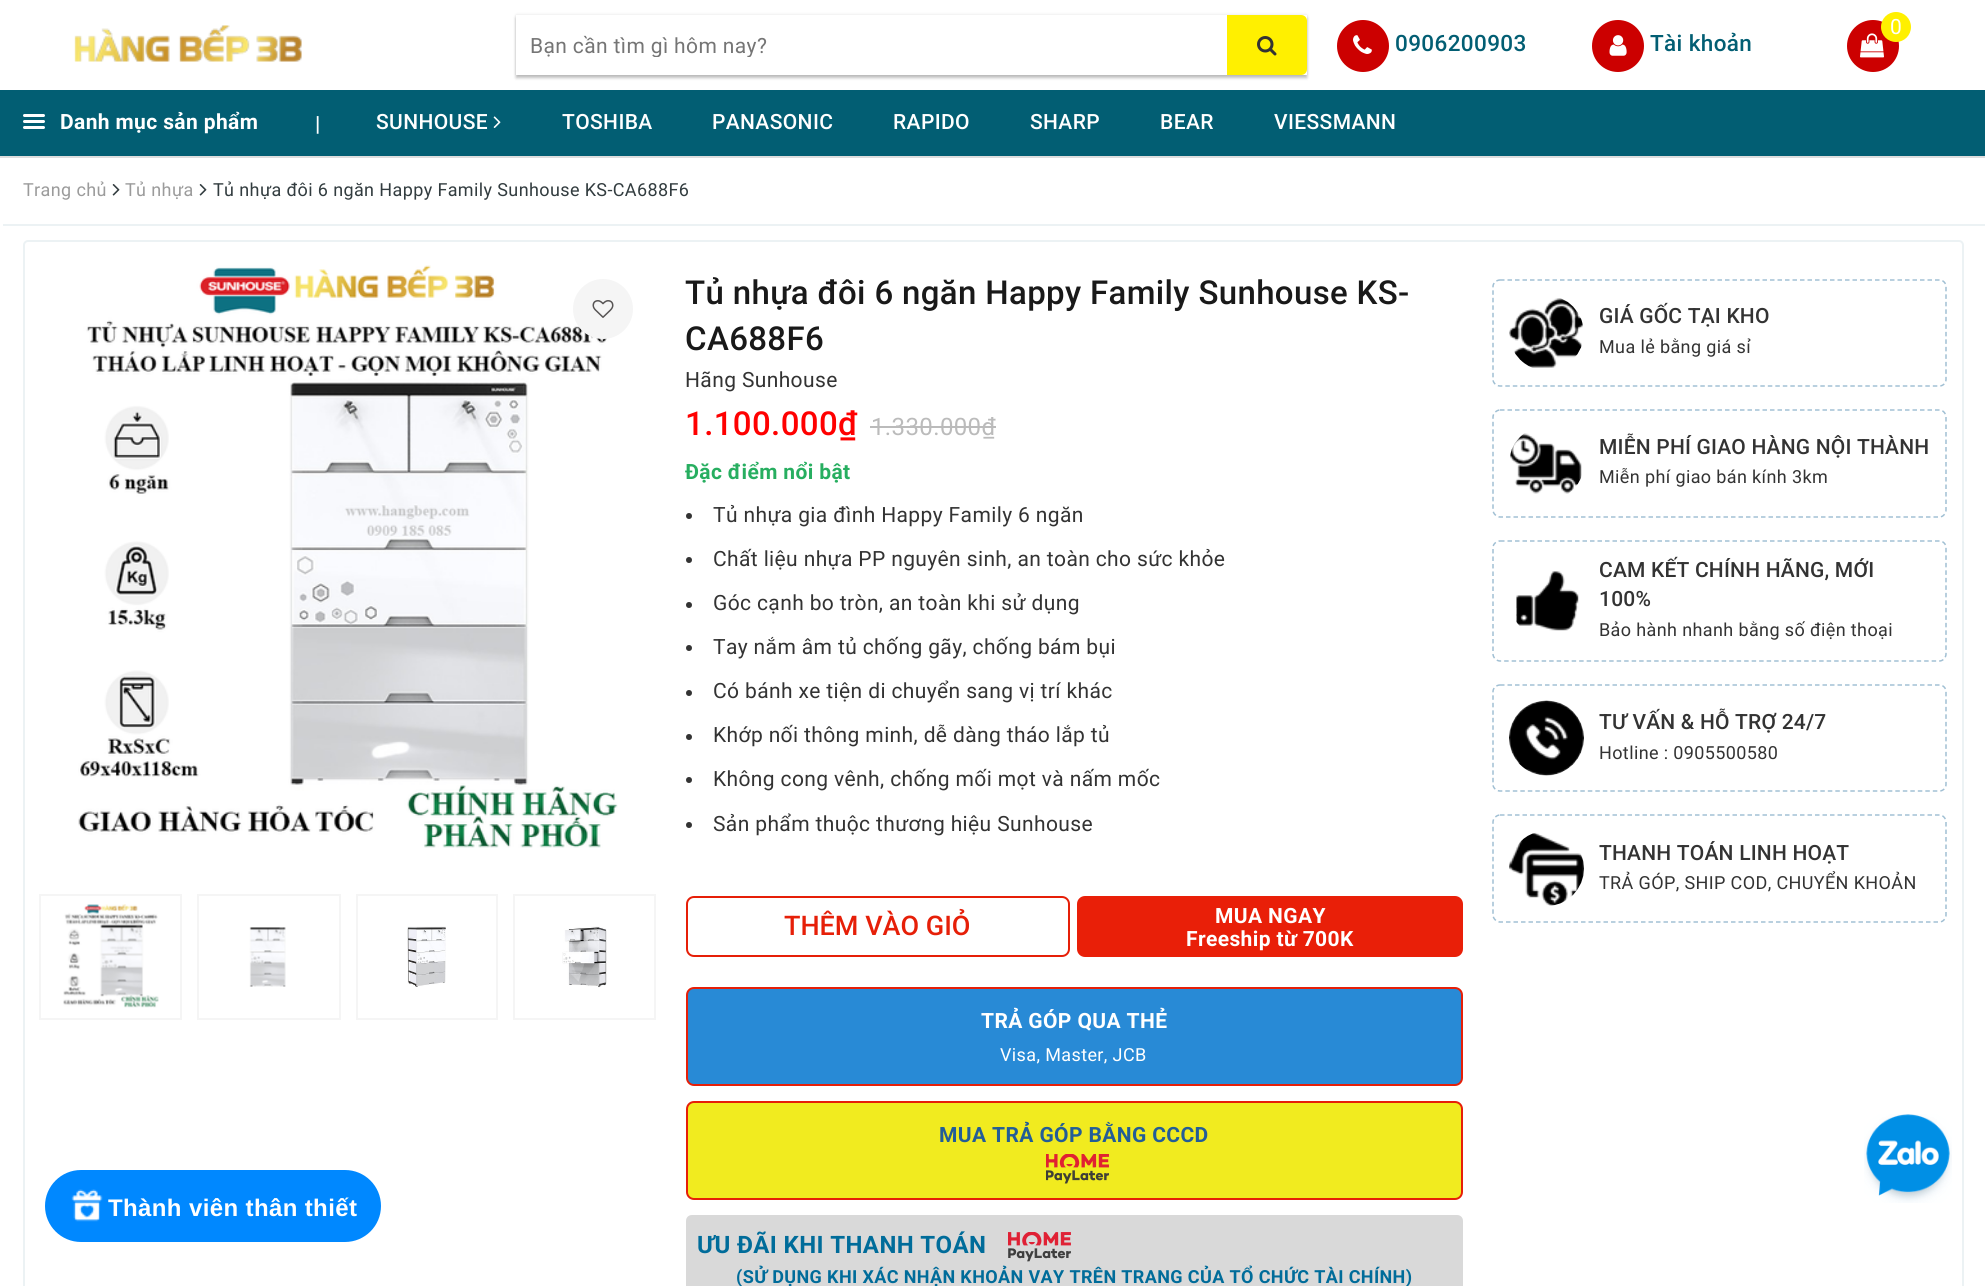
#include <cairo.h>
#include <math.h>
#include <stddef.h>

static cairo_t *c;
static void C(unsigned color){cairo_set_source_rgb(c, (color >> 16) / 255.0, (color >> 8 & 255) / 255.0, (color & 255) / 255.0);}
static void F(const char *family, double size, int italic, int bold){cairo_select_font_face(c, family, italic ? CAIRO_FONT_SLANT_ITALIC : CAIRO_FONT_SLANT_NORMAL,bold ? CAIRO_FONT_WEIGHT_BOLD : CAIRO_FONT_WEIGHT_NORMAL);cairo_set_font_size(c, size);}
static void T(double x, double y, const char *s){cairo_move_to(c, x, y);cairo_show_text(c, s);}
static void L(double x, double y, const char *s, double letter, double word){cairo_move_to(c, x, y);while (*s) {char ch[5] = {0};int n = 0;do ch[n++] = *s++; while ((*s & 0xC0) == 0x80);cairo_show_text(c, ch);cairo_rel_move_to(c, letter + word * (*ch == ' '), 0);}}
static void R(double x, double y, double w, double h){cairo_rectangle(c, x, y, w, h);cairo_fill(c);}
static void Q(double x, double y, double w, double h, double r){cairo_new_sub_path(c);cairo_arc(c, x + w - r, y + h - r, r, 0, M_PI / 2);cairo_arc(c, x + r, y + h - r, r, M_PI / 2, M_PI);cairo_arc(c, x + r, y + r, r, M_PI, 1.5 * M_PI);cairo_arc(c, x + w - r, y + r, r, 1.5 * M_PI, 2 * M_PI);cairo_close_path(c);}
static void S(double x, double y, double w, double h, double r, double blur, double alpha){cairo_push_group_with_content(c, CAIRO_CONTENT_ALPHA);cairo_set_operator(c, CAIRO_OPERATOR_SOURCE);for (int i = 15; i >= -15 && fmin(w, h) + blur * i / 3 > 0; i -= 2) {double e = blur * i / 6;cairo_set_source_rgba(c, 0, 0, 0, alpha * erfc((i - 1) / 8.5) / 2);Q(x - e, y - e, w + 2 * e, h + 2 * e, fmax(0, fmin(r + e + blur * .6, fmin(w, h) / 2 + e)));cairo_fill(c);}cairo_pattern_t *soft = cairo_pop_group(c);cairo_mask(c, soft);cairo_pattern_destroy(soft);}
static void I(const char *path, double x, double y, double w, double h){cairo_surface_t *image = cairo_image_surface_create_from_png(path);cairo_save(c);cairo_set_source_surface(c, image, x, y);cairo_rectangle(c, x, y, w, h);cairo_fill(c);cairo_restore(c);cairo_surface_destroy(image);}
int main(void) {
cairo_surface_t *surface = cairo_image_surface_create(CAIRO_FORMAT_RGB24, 1985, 1286);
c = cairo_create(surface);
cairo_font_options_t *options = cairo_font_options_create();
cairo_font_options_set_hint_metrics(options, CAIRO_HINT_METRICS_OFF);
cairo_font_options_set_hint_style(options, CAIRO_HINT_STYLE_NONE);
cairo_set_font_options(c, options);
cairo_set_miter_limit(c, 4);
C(0xffffff);
cairo_paint(c);
I("1.png",74,25,228,37);
cairo_save(c);
cairo_set_fill_rule(c,CAIRO_FILL_RULE_EVEN_ODD);
cairo_new_path(c);
cairo_move_to(c,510,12);
cairo_line_to(c,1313,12);
cairo_line_to(c,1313,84);
cairo_line_to(c,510,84);
cairo_close_path(c);
cairo_move_to(c,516,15);
cairo_line_to(c,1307,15);
cairo_line_to(c,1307,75);
cairo_line_to(c,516,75);
cairo_close_path(c);
cairo_clip(c);
C(0x000000);
S(516,18,791,60,0,1.5,.24);
cairo_restore(c);
cairo_save(c);
cairo_set_fill_rule(c,CAIRO_FILL_RULE_EVEN_ODD);
cairo_new_path(c);
cairo_move_to(c,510,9);
cairo_line_to(c,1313,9);
cairo_line_to(c,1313,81);
cairo_line_to(c,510,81);
cairo_close_path(c);
cairo_move_to(c,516,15);
cairo_line_to(c,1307,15);
cairo_line_to(c,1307,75);
cairo_line_to(c,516,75);
cairo_close_path(c);
cairo_clip(c);
C(0x000000);
S(516,15,791,60,0,1.5,.12);
cairo_restore(c);
cairo_save(c);
cairo_rectangle(c,531,33,677,24);
cairo_clip(c);
F("Roboto",21,0,0);
C(0x757575);
L(530,53,"Bạn cần tìm gì hôm nay?",.38,0);
cairo_restore(c);
C(0xfff000);
cairo_new_path(c);
cairo_move_to(c,1227,15);
cairo_line_to(c,1301,15);
cairo_curve_to(c,1304.5,15,1307,17.5,1307,21);
cairo_line_to(c,1307,69);
cairo_curve_to(c,1307,72.5,1304.5,75,1301,75);
cairo_line_to(c,1227,75);
cairo_close_path(c);
cairo_fill(c);
I("2.png",1257,36,20,20);
C(0xcc0000);
cairo_arc(c,1873,46,26,0,2 * M_PI);
cairo_fill(c);
I("3.png",1860,33,24,25);
C(0xfff000);
cairo_arc(c,1896,27,15,0,2 * M_PI);
cairo_fill(c);
F("Roboto",21,0,0);
C(0xffffff);
L(1890,34,"0",.38,0);
C(0xcc0000);
cairo_new_path(c);
cairo_arc(c,1363,46,26,0,2 * M_PI);
cairo_fill(c);
I("4.png",1353,35,19,19);
F("Roboto Medium",22.5,0,0);
C(0x025e73);
L(1395,51,"0906200903",.38,0);
C(0xcc0000);
cairo_new_path(c);
cairo_arc(c,1618,46,26,0,2 * M_PI);
cairo_fill(c);
I("5.png",1609,35,18,21);
C(0x025e73);
L(1650,51,"Tài khoản",.38,0);
R(0,90,1985,66);
C(0xdddddd);
R(0,156,1985,2);
C(0xffffff);
Q(23,114,22,3,1.5);
cairo_fill(c);
Q(23,120,22,3,1.5);
cairo_fill(c);
Q(23,126,22,3,1.5);
cairo_fill(c);
F("Roboto",21,0,1);
L(60,129,"Danh mục sản phẩm",.38,0);
L(315,131,"|",.38,0);
F("Roboto Medium",21,0,0);
L(376,129,"SUNHOUSE",.38,0);
I("6.png",493,116,8,12);
L(562,129,"TOSHIBA",.38,0);
L(712,129,"PANASONIC",.38,0);
L(893,129,"RAPIDO",.38,0);
L(1030,129,"SHARP",.38,0);
L(1160,129,"BEAR",.38,0);
L(1274,129,"VIESSMANN",.38,0);
C(0xecf2f4);
R(3,224,1982,2);
F("Roboto",18,0,0);
C(0x9b9b9b);
L(23,196,"Trang chủ",.38,0);
I("7.png",112,184,8,12);
L(125,196,"Tủ nhựa",.38,0);
I("7.png",199,184,8,12);
C(0x323c3f);
L(213,196,"Tủ nhựa đôi 6 ngăn Happy Family Sunhouse KS-CA688F6",.38,0);
Q(24,241,1939,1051,4);
C(0xecf2f4);
cairo_stroke(c);
I("8.png",78,265,540,583);
C(0xf5f5f5);
cairo_arc(c,603,309,30,0,2 * M_PI);
cairo_fill(c);
I("9.png",592,300,22,18);
cairo_rectangle(c,40,895,141,124);
cairo_stroke(c);
I("10.png",63,904,96,104);
cairo_rectangle(c,198,895,142,124);
cairo_stroke(c);
I("11.png",249,927,37,60);
cairo_rectangle(c,357,895,140,124);
cairo_stroke(c);
I("12.png",407,926,39,61);
cairo_rectangle(c,514,895,141,124);
cairo_stroke(c);
I("13.png",562,926,45,62);
F("Roboto Medium",33,0,0);
C(0x191919);
L(685,304,"Tủ nhựa đôi 6 ngăn Happy Family Sunhouse KS-",.35,0);
L(685,350,"CA688F6",.35,0);
F("Roboto",21,0,0);
C(0x333333);
L(685,387,"Hãng Sunhouse",.38,0);
F("Roboto Medium",33,0,0);
C(0xff0000);
L(685,435,"1.100.000₫",.38,0);
F("Roboto",24,0,0);
C(0xbbbbbb);
L(871,435,"1.330.000₫",.38,0);
R(870,426,126,2);
F("Roboto",21,0,1);
C(0x27ae60);
L(685,479,"Đặc điểm nổi bật",.38,0);
C(0x333333);
cairo_new_path(c);
cairo_arc(c,689,516,3,0,2 * M_PI);
cairo_fill(c);
F("Roboto",21,0,0);
L(713,522,"Tủ nhựa gia đình Happy Family 6 ngăn",.38,0);
cairo_new_path(c);
cairo_arc(c,689,560,3,0,2 * M_PI);
cairo_fill(c);
L(713,566,"Chất liệu nhựa PP nguyên sinh, an toàn cho sức khỏe",.38,0);
cairo_new_path(c);
cairo_arc(c,689,605,3,0,2 * M_PI);
cairo_fill(c);
L(713,610,"Góc cạnh bo tròn, an toàn khi sử dụng",.38,0);
cairo_new_path(c);
cairo_arc(c,689,648,3,0,2 * M_PI);
cairo_fill(c);
L(713,654,"Tay nắm âm tủ chống gãy, chống bám bụi",.38,0);
cairo_new_path(c);
cairo_arc(c,689,693,3,0,2 * M_PI);
cairo_fill(c);
L(713,698,"Có bánh xe tiện di chuyển sang vị trí khác",.38,0);
cairo_new_path(c);
cairo_arc(c,689,737,3,0,2 * M_PI);
cairo_fill(c);
L(713,742,"Khớp nối thông minh, dễ dàng tháo lắp tủ",.38,0);
cairo_new_path(c);
cairo_arc(c,689,780,3,0,2 * M_PI);
cairo_fill(c);
L(713,786,"Không cong vênh, chống mối mọt và nấm mốc",.38,0);
cairo_new_path(c);
cairo_arc(c,689,825,3,0,2 * M_PI);
cairo_fill(c);
L(713,831,"Sản phẩm thuộc thương hiệu Sunhouse",.38,0);
Q(687,897,382,59,7);
C(0xe61f08);
cairo_stroke(c);
F("Roboto Medium",27,0,0);
T(784,935,"THÊM VÀO GIỎ");
C(0xe91f08);
Q(1077,896,386,61,8);
cairo_fill(c);
F("Roboto",21,0,1);
C(0xffffff);
L(1215,923,"MUA NGAY",.38,0);
L(1186,946,"Freeship từ 700K",.38,0);
C(0x288ad6);
Q(687,988,775,97,7);
cairo_fill_preserve(c);
C(0xe61f08);
cairo_stroke(c);
C(0xffffff);
L(981,1028,"TRẢ GÓP QUA THẺ",.38,0);
F("Roboto",18,0,0);
L(1000,1061,"Visa, Master, JCB",.38,0);
C(0xf1eb1f);
Q(687,1102,775,97,7);
cairo_fill_preserve(c);
C(0xe61f08);
cairo_stroke(c);
F("Roboto",21,0,1);
C(0x235d97);
L(939,1142,"MUA TRẢ GÓP BẰNG CCCD",.38,0);
I("14.png",1046,1154,63,30);
C(0xd9d9d9);
cairo_new_path(c);
cairo_move_to(c,692,1215);
cairo_line_to(c,1457,1215);
cairo_curve_to(c,1460.5,1215,1463,1217.5,1463,1221);
cairo_line_to(c,1463,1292);
cairo_line_to(c,686,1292);
cairo_line_to(c,686,1221);
cairo_curve_to(c,686,1217.5,688.5,1215,692,1215);
cairo_close_path(c);
cairo_fill(c);
F("Roboto",24,0,1);
C(0x006c9a);
L(697,1253,"ƯU ĐÃI KHI THANH TOÁN",.38,0);
I("15.png",1008,1232,63,30);
F("Roboto",18,0,1);
L(736,1283,"(SỬ DỤNG KHI XÁC NHẬN KHOẢN VAY TRÊN TRANG CỦA TỔ CHỨC TÀI CHÍNH)",.38,0);
cairo_new_path(c);
cairo_move_to(c,1500,280);
cairo_line_to(c,1939.5,280);
cairo_curve_to(c,1943,280,1946,283,1946,286.5);
cairo_line_to(c,1946,379.5);
cairo_curve_to(c,1946,383,1943,386,1939.5,386);
cairo_line_to(c,1500,386);
cairo_curve_to(c,1496.5,386,1493,383,1493,379.5);
cairo_line_to(c,1493,286.5);
cairo_curve_to(c,1493,283,1496.5,280,1500,280);
cairo_close_path(c);
C(0xa0bfd3);
cairo_set_line_width(c,1.5);
cairo_set_dash(c,(double[]){4.5,3},2,0);
cairo_stroke(c);
I("16.png",1509,298,74,70);
F("Roboto Medium",21,0,0);
C(0x333333);
L(1599,323,"GIÁ GỐC TẠI KHO",.2,0);
F("Roboto",18,0,0);
L(1599,353,"Mua lẻ bằng giá sỉ",.38,0);
cairo_new_path(c);
cairo_move_to(c,1500,410);
cairo_line_to(c,1939.5,410);
cairo_curve_to(c,1943,410,1946,413.5,1946,417);
cairo_line_to(c,1946,510);
cairo_curve_to(c,1946,513.5,1943,517,1939.5,517);
cairo_line_to(c,1500,517);
cairo_curve_to(c,1496.5,517,1493,513.5,1493,510);
cairo_line_to(c,1493,417);
cairo_curve_to(c,1493,413.5,1496.5,410,1500,410);
cairo_close_path(c);
C(0xa0bfd3);
cairo_stroke(c);
I("17.png",1510,433,72,61);
F("Roboto Medium",21,0,0);
C(0x333333);
L(1599,454,"MIỄN PHÍ GIAO HÀNG NỘI THÀNH",.2,0);
F("Roboto",18,0,0);
L(1599,483,"Miễn phí giao bán kính 3km",.38,0);
cairo_new_path(c);
cairo_move_to(c,1500,541);
cairo_line_to(c,1939.5,541);
cairo_curve_to(c,1943,541,1946,544,1946,547.5);
cairo_line_to(c,1946,654);
cairo_curve_to(c,1946,657.5,1943,661,1939.5,661);
cairo_line_to(c,1500,661);
cairo_curve_to(c,1496.5,661,1493,657.5,1493,654);
cairo_line_to(c,1493,547.5);
cairo_curve_to(c,1493,544,1496.5,541,1500,541);
cairo_close_path(c);
C(0xa0bfd3);
cairo_stroke(c);
I("18.png",1516,571,63,60);
F("Roboto Medium",21,0,0);
C(0x333333);
L(1599,577,"CAM KẾT CHÍNH HÃNG, MỚI",.2,0);
L(1599,606,"100%",.2,0);
F("Roboto",18,0,0);
L(1599,636,"Bảo hành nhanh bằng số điện thoại",.38,0);
cairo_new_path(c);
cairo_move_to(c,1500,685);
cairo_line_to(c,1939.5,685);
cairo_curve_to(c,1943,685,1946,688,1946,691.5);
cairo_line_to(c,1946,784.5);
cairo_curve_to(c,1946,788,1943,791,1939.5,791);
cairo_line_to(c,1500,791);
cairo_curve_to(c,1496.5,791,1493,788,1493,784.5);
cairo_line_to(c,1493,691.5);
cairo_curve_to(c,1493,688,1496.5,685,1500,685);
cairo_close_path(c);
C(0xa0bfd3);
cairo_stroke(c);
I("19.png",1509,700,75,76);
F("Roboto Medium",21,0,0);
C(0x333333);
L(1599,729,"TƯ VẤN & HỖ TRỢ 24/7",.2,0);
F("Roboto",18,0,0);
L(1599,759,"Hotline : 0905500580",.38,0);
cairo_new_path(c);
cairo_move_to(c,1500,815);
cairo_line_to(c,1939.5,815);
cairo_curve_to(c,1943,815,1946,818.5,1946,822);
cairo_line_to(c,1946,915);
cairo_curve_to(c,1946,918.5,1943,922,1939.5,922);
cairo_line_to(c,1500,922);
cairo_curve_to(c,1496.5,922,1493,918.5,1493,915);
cairo_line_to(c,1493,822);
cairo_curve_to(c,1493,818.5,1496.5,815,1500,815);
cairo_close_path(c);
C(0xa0bfd3);
cairo_stroke(c);
I("20.png",1509,832,75,74);
F("Roboto Medium",21,0,0);
C(0x333333);
L(1599,860,"THANH TOÁN LINH HOẠT",.2,0);
F("Roboto",18,0,0);
L(1599,889,"TRẢ GÓP, SHIP COD, CHUYỂN KHOẢN",.38,0);
I("21.png",1864,1114,88,89);
C(0x0088ff);
Q(45,1170,336,72,36);
cairo_fill(c);
I("22.png",71,1189,32,33);
F("Liberation Sans",24,0,1);
C(0xffffff);
L(108,1216,"Thành viên thân thiết",.38,0);
cairo_surface_write_to_png(surface, "o.png");
cairo_font_options_destroy(options);
cairo_destroy(c);
cairo_surface_destroy(surface);
return 0;
}
